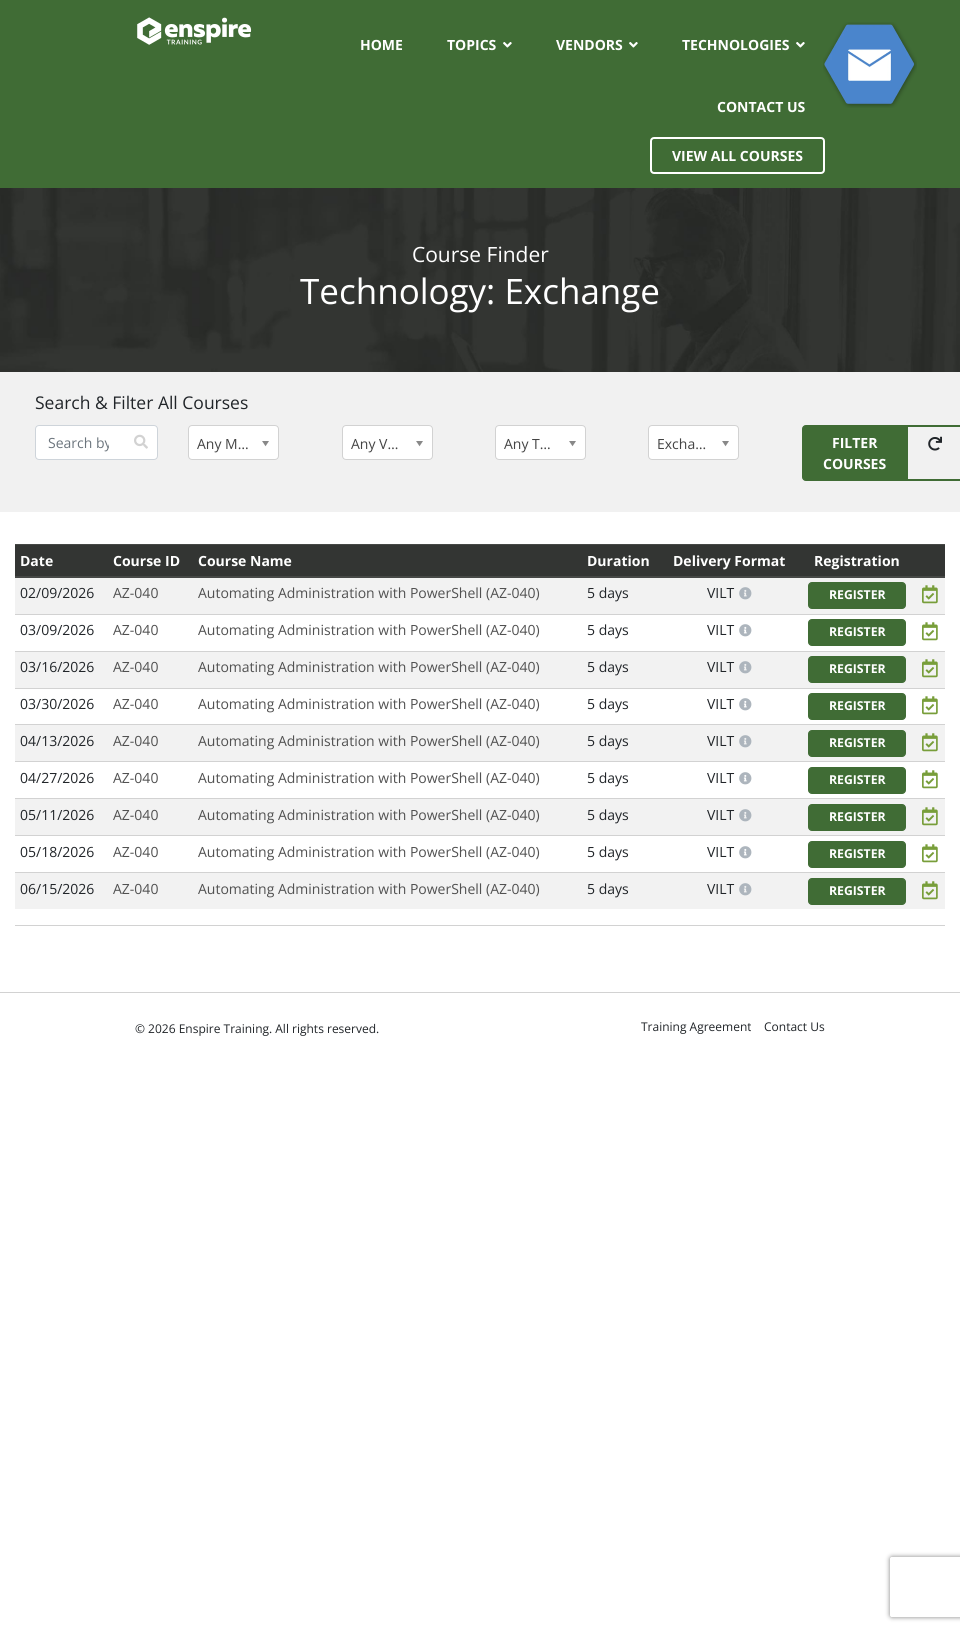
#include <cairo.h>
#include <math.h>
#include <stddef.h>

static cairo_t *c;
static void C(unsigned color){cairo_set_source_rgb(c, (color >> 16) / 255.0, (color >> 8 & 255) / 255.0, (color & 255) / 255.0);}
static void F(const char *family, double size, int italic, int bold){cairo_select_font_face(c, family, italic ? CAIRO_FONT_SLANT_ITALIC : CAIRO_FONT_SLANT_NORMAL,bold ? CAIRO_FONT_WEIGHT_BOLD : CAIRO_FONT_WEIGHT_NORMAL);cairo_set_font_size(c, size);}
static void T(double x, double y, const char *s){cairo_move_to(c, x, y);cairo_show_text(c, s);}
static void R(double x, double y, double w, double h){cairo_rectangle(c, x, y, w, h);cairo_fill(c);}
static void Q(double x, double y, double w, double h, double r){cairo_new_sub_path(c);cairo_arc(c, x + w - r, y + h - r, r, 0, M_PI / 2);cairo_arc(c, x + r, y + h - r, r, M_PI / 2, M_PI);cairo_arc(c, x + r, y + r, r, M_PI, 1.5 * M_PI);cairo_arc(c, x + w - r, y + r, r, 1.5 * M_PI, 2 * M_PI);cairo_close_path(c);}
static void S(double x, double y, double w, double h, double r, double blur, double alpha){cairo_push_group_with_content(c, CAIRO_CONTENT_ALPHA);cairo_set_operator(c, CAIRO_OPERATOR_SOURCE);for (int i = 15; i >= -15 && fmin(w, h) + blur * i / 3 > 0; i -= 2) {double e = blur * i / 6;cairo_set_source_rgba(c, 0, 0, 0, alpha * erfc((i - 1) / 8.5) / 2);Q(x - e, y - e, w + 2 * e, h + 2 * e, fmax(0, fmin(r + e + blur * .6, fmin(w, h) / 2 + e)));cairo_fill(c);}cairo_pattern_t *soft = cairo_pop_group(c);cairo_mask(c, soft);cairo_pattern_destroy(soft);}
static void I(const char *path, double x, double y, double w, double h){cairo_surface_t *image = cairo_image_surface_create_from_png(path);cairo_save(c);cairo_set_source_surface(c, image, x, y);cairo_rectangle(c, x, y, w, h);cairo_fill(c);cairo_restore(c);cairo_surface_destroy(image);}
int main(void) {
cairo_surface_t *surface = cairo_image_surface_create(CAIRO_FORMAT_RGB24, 960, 1631);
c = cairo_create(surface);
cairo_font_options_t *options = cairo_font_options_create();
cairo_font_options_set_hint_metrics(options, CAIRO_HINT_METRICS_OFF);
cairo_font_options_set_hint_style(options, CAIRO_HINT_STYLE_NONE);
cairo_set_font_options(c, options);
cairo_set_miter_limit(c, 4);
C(0xffffff);
cairo_paint(c);
C(0x406c35);
R(0,0,960,188);
I("1.png",137,17,115,28);
F("Open Sans",14,0,1);
C(0xffffff);
T(360,50,"HOME");
T(447,50,"TOPICS");
I("2.png",503,42,9,6);
T(556,50,"VENDORS");
I("2.png",629,42,9,6);
T(682,50,"TECHNOLOGIES");
I("2.png",796,42,9,6);
T(717,112,"CONTACT US");
Q(651,138,173,35,3);
cairo_stroke(c);
T(672,161,"VIEW ALL COURSES");
I("3.png",823,22,94,86);
I("4.png",0,188,960,184);
F("Open Sans",21,0,0);
T(412,262,"Course Finder");
F("Open Sans",35,0,0);
T(300,304,"Technology: Exchange");
C(0xf1f1f1);
R(0,372,960,140);
F("Open Sans",17.5,0,0);
C(0x212529);
T(35,409,"Search & Filter All Courses");
C(0xffffff);
Q(35.5,425.5,122,34,3.5);
cairo_fill_preserve(c);
C(0xced4da);
cairo_set_line_width(c,1);
cairo_stroke(c);
cairo_save(c);
cairo_rectangle(c,48,433,61,19);
cairo_clip(c);
F("Open Sans",14,0,0);
C(0x6c757d);
T(48,448,"Search by");
cairo_restore(c);
I("5.png",134,434,14,15);
C(0xffffff);
Q(188.5,425.5,90,34,3.5);
cairo_fill_preserve(c);
C(0xd2d2d2);
cairo_stroke(c);
F("Open Sans",14,0,0);
C(0x444444);
T(197,449,"Any M…");
I("6.png",262,441,7,6);
C(0xffffff);
Q(342.5,425.5,90,34,3.5);
cairo_fill_preserve(c);
C(0xd2d2d2);
cairo_stroke(c);
C(0x444444);
T(351,449,"Any V…");
I("6.png",416,441,7,6);
C(0xffffff);
Q(495.5,425.5,90,34,3.5);
cairo_fill_preserve(c);
C(0xd2d2d2);
cairo_stroke(c);
C(0x444444);
T(504,449,"Any T…");
I("6.png",569,441,7,6);
C(0xffffff);
Q(648.5,425.5,90,34,3.5);
cairo_fill_preserve(c);
C(0xd2d2d2);
cairo_stroke(c);
C(0x444444);
T(657,449,"Excha…");
I("6.png",722,441,7,6);
C(0x406c35);
cairo_new_path(c);
cairo_move_to(c,806,425.5);
cairo_line_to(c,906.5,425.5);
cairo_line_to(c,906.5,480.5);
cairo_line_to(c,806,480.5);
cairo_curve_to(c,804,480.5,802.5,479,802.5,477);
cairo_line_to(c,802.5,429);
cairo_curve_to(c,802.5,427,804,425.5,806,425.5);
cairo_close_path(c);
cairo_fill_preserve(c);
cairo_stroke(c);
F("Open Sans",14,0,1);
C(0xffffff);
T(832,448,"FILTER");
T(823,469,"COURSES");
cairo_rectangle(c,907,426,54,54);
C(0x406c35);
cairo_set_line_width(c,2);
cairo_stroke(c);
I("7.png",928,436,14,15);
C(0x464846);
R(15,544,930,1);
R(15,576,930,2);
C(0x333533);
R(15,545,930,31);
C(0xffffff);
T(20,566,"Date");
T(113,566,"Course ID");
T(198,566,"Course Name");
T(587,566,"Duration");
T(673,566,"Delivery Format");
T(814,566,"Registration");
C(0xf2f2f2);
R(15,578,930,36);
F("Open Sans",14,0,0);
C(0x212529);
T(20,598,"02/09/2026");
C(0x515151);
T(113,598,"AZ-040");
T(198,598,"Automating Administration with PowerShell (AZ-040)");
C(0x212529);
T(587,598,"5 days");
T(707,598,"VILT");
I("8.png",739,587,13,13);
C(0x406c35);
Q(808.5,582.5,97,26,3.5);
cairo_fill_preserve(c);
cairo_set_line_width(c,1);
cairo_stroke(c);
F("Open Sans",12.25,0,1);
C(0xffffff);
T(829,599,"REGISTER");
I("9.png",922,585,16,19);
C(0xd2d2d2);
R(15,614,930,1);
I("10.png",922,622,16,19);
F("Open Sans",14,0,0);
C(0x212529);
T(20,635,"03/09/2026");
C(0x515151);
T(113,635,"AZ-040");
T(198,635,"Automating Administration with PowerShell (AZ-040)");
C(0x212529);
T(587,635,"5 days");
T(707,635,"VILT");
I("11.png",739,624,13,13);
C(0x406c35);
Q(808.5,619.5,97,26,3.5);
cairo_fill_preserve(c);
cairo_stroke(c);
F("Open Sans",12.25,0,1);
C(0xffffff);
T(829,636,"REGISTER");
C(0xf2f2f2);
R(15,652,930,36);
C(0xd2d2d2);
R(15,651,930,1);
I("9.png",922,659,16,19);
F("Open Sans",14,0,0);
C(0x212529);
T(20,672,"03/16/2026");
C(0x515151);
T(113,672,"AZ-040");
T(198,672,"Automating Administration with PowerShell (AZ-040)");
C(0x212529);
T(587,672,"5 days");
T(707,672,"VILT");
I("8.png",739,661,13,13);
C(0x406c35);
Q(808.5,656.5,97,26,3.5);
cairo_fill_preserve(c);
cairo_stroke(c);
F("Open Sans",12.25,0,1);
C(0xffffff);
T(829,673,"REGISTER");
C(0xd2d2d2);
R(15,688,930,1);
I("10.png",922,696,16,19);
F("Open Sans",14,0,0);
C(0x212529);
T(20,709,"03/30/2026");
C(0x515151);
T(113,709,"AZ-040");
T(198,709,"Automating Administration with PowerShell (AZ-040)");
C(0x212529);
T(587,709,"5 days");
T(707,709,"VILT");
I("11.png",739,698,13,13);
C(0x406c35);
Q(808.5,693.5,97,26,3.5);
cairo_fill_preserve(c);
cairo_stroke(c);
F("Open Sans",12.25,0,1);
C(0xffffff);
T(829,710,"REGISTER");
C(0xf2f2f2);
R(15,725,930,36);
C(0xd2d2d2);
R(15,724,930,1);
I("9.png",922,733,16,19);
F("Open Sans",14,0,0);
C(0x212529);
T(20,746,"04/13/2026");
C(0x515151);
T(113,746,"AZ-040");
T(198,746,"Automating Administration with PowerShell (AZ-040)");
C(0x212529);
T(587,746,"5 days");
T(707,746,"VILT");
I("8.png",739,735,13,13);
C(0x406c35);
Q(808.5,730.5,97,26,3.5);
cairo_fill_preserve(c);
cairo_stroke(c);
F("Open Sans",12.25,0,1);
C(0xffffff);
T(829,747,"REGISTER");
C(0xd2d2d2);
R(15,761,930,1);
I("10.png",922,770,16,19);
F("Open Sans",14,0,0);
C(0x212529);
T(20,783,"04/27/2026");
C(0x515151);
T(113,783,"AZ-040");
T(198,783,"Automating Administration with PowerShell (AZ-040)");
C(0x212529);
T(587,783,"5 days");
T(707,783,"VILT");
I("11.png",739,772,13,13);
C(0x406c35);
Q(808.5,767.5,97,26,3.5);
cairo_fill_preserve(c);
cairo_stroke(c);
F("Open Sans",12.25,0,1);
C(0xffffff);
T(829,784,"REGISTER");
C(0xf2f2f2);
R(15,799,930,36);
C(0xd2d2d2);
R(15,798,930,1);
I("9.png",922,807,16,19);
F("Open Sans",14,0,0);
C(0x212529);
T(20,820,"05/11/2026");
C(0x515151);
T(113,820,"AZ-040");
T(198,820,"Automating Administration with PowerShell (AZ-040)");
C(0x212529);
T(587,820,"5 days");
T(707,820,"VILT");
I("8.png",739,809,13,13);
C(0x406c35);
Q(808.5,804.5,97,26,3.5);
cairo_fill_preserve(c);
cairo_stroke(c);
F("Open Sans",12.25,0,1);
C(0xffffff);
T(829,821,"REGISTER");
C(0xd2d2d2);
R(15,835,930,1);
I("10.png",922,844,16,19);
F("Open Sans",14,0,0);
C(0x212529);
T(20,857,"05/18/2026");
C(0x515151);
T(113,857,"AZ-040");
T(198,857,"Automating Administration with PowerShell (AZ-040)");
C(0x212529);
T(587,857,"5 days");
T(707,857,"VILT");
I("11.png",739,846,13,13);
C(0x406c35);
Q(808.5,841.5,97,26,3.5);
cairo_fill_preserve(c);
cairo_stroke(c);
F("Open Sans",12.25,0,1);
C(0xffffff);
T(829,858,"REGISTER");
C(0xf2f2f2);
R(15,873,930,36);
C(0xd2d2d2);
R(15,872,930,1);
I("9.png",922,881,16,19);
F("Open Sans",14,0,0);
C(0x212529);
T(20,894,"06/15/2026");
C(0x515151);
T(113,894,"AZ-040");
T(198,894,"Automating Administration with PowerShell (AZ-040)");
C(0x212529);
T(587,894,"5 days");
T(707,894,"VILT");
I("8.png",739,883,13,13);
C(0x406c35);
Q(808.5,878.5,97,26,3.5);
cairo_fill_preserve(c);
cairo_stroke(c);
F("Open Sans",12.25,0,1);
C(0xffffff);
T(829,895,"REGISTER");
C(0xd2d2d2);
R(15,925,930,1);
R(0,992,960,1);
F("Open Sans",12,0,0);
C(0x212529);
T(135,1033,"© 2026 Enspire Training. All rights reserved.");
T(641,1031,"Training Agreement");
T(764,1031,"Contact Us");
cairo_save(c);
cairo_set_fill_rule(c,CAIRO_FILL_RULE_EVEN_ODD);
cairo_new_path(c);
cairo_move_to(c,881,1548);
cairo_line_to(c,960,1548);
cairo_line_to(c,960,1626);
cairo_line_to(c,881,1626);
cairo_close_path(c);
cairo_move_to(c,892,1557);
cairo_line_to(c,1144,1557);
cairo_curve_to(c,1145,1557,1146,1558,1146,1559);
cairo_line_to(c,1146,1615);
cairo_curve_to(c,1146,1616,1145,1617,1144,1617);
cairo_line_to(c,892,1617);
cairo_curve_to(c,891,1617,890,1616,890,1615);
cairo_line_to(c,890,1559);
cairo_curve_to(c,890,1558,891,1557,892,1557);
cairo_close_path(c);
cairo_clip(c);
C(0x808080);
S(890,1557,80,60,2,2.5,1);
cairo_restore(c);
cairo_surface_write_to_png(surface, "o.png");
cairo_font_options_destroy(options);
cairo_destroy(c);
cairo_surface_destroy(surface);
return 0;
}
